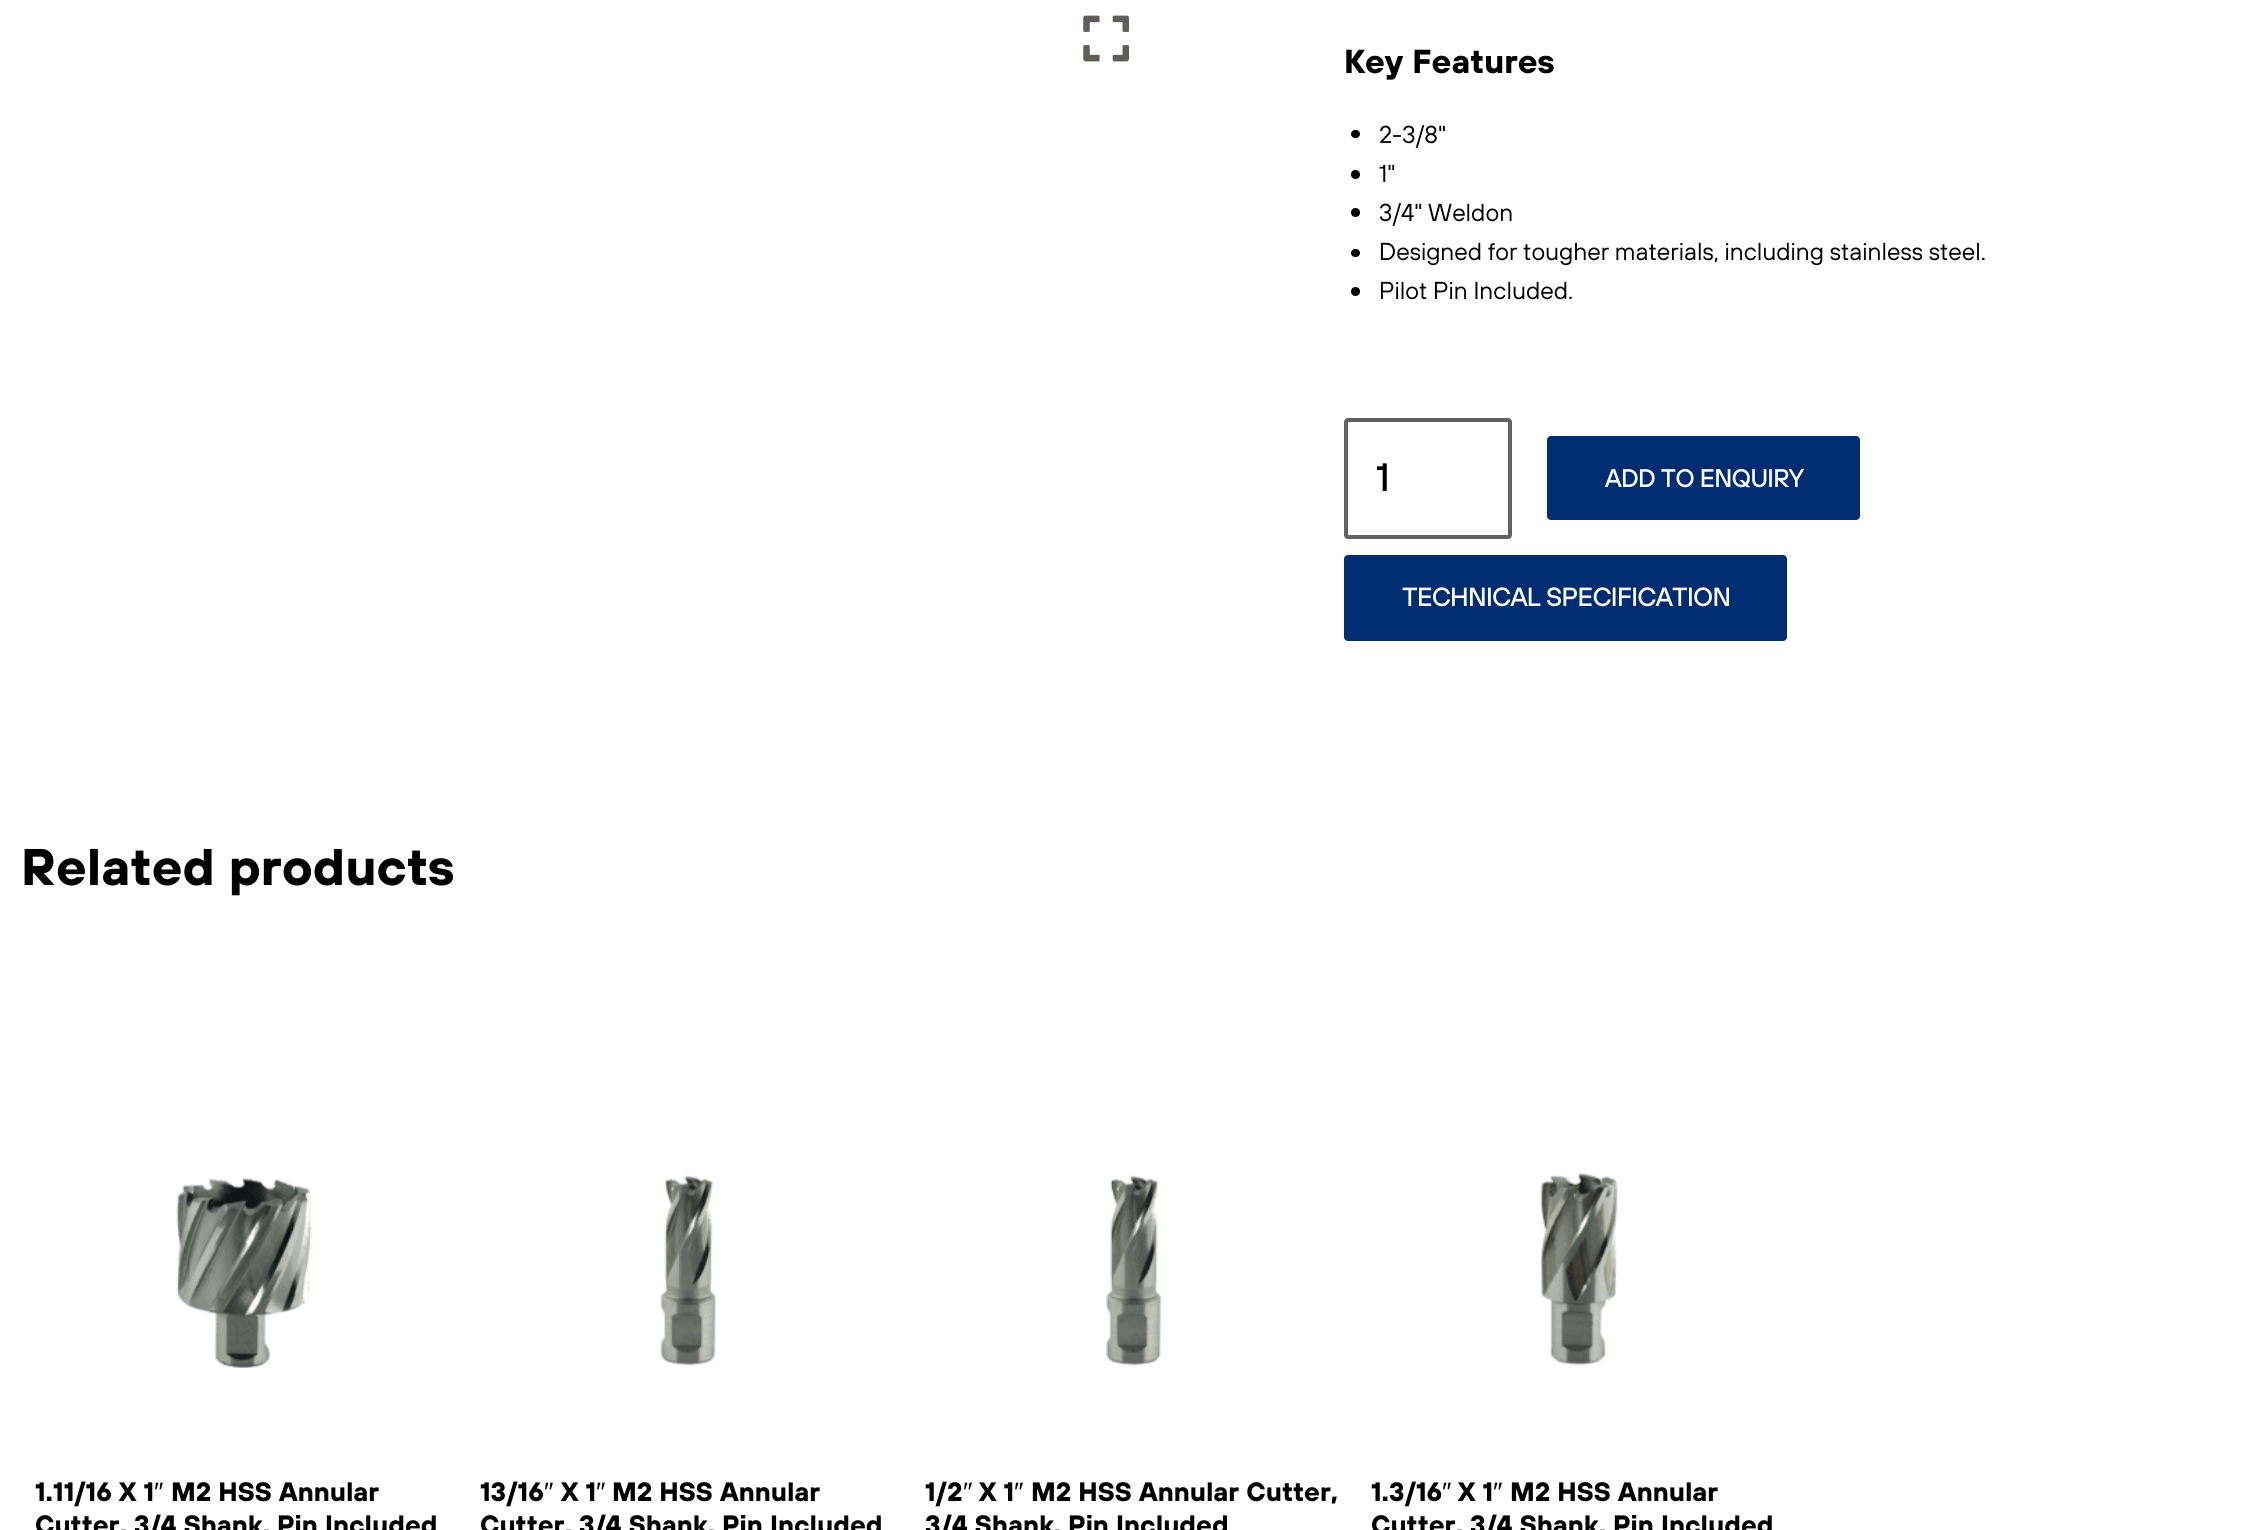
#include <cairo.h>
#include <math.h>
#include <stddef.h>

static cairo_t *c;
static void C(unsigned color){cairo_set_source_rgb(c, (color >> 16) / 255.0, (color >> 8 & 255) / 255.0, (color & 255) / 255.0);}
static void F(const char *family, double size, int italic, int bold){cairo_select_font_face(c, family, italic ? CAIRO_FONT_SLANT_ITALIC : CAIRO_FONT_SLANT_NORMAL,bold ? CAIRO_FONT_WEIGHT_BOLD : CAIRO_FONT_WEIGHT_NORMAL);cairo_set_font_size(c, size);}
static void T(double x, double y, const char *s){cairo_move_to(c, x, y);cairo_show_text(c, s);}
static void Q(double x, double y, double w, double h, double r){cairo_new_sub_path(c);cairo_arc(c, x + w - r, y + h - r, r, 0, M_PI / 2);cairo_arc(c, x + r, y + h - r, r, M_PI / 2, M_PI);cairo_arc(c, x + r, y + r, r, M_PI, 1.5 * M_PI);cairo_arc(c, x + w - r, y + r, r, 1.5 * M_PI, 2 * M_PI);cairo_close_path(c);}
static void I(const char *path, double x, double y, double w, double h){cairo_surface_t *image = cairo_image_surface_create_from_png(path);cairo_save(c);cairo_set_source_surface(c, image, x, y);cairo_rectangle(c, x, y, w, h);cairo_fill(c);cairo_restore(c);cairo_surface_destroy(image);}
int main(void) {
cairo_surface_t *surface = cairo_image_surface_create(CAIRO_FORMAT_RGB24, 2268, 1530);
c = cairo_create(surface);
cairo_font_options_t *options = cairo_font_options_create();
cairo_font_options_set_hint_metrics(options, CAIRO_HINT_METRICS_OFF);
cairo_font_options_set_hint_style(options, CAIRO_HINT_STYLE_NONE);
cairo_set_font_options(c, options);
cairo_set_miter_limit(c, 4);
C(0xffffff);
cairo_paint(c);
I("1.png",1083,15,46,47);
F("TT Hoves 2",33.25,0,1);
C(0x000000);
T(1344,73,"Key Features");
Q(1351,130,9,8,4);
cairo_fill(c);
F("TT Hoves",24.5,0,0);
T(1379,143,"2-3/8\"");
cairo_new_path(c);
cairo_arc(c,1355.5,174.5,4.5,0,2 * M_PI);
cairo_fill(c);
T(1379,182,"1\"");
cairo_new_path(c);
cairo_arc(c,1355.5,212.5,4.5,0,2 * M_PI);
cairo_fill(c);
T(1379,221,"3/4\" Weldon");
Q(1351,249,9,8,4);
cairo_fill(c);
T(1379,260,"Designed for tougher materials, including stainless steel.");
cairo_new_path(c);
cairo_arc(c,1355.5,291.5,4.5,0,2 * M_PI);
cairo_fill(c);
T(1379,299,"Pilot Pin Included.");
Q(1346,420,164,117,2);
C(0x626262);
cairo_set_line_width(c,4);
cairo_stroke(c);
F("TT Hoves",38,0,1);
C(0x000000);
T(1376,491,"1");
C(0x002d71);
Q(1547,436,313,84,4);
cairo_fill(c);
F("TT Hoves",24.5,0,1);
C(0xffffff);
T(1605,487,"ADD TO ENQUIRY");
C(0x002d71);
Q(1344,555,443,86,4);
cairo_fill(c);
F("TT Hoves",25.25,0,1);
C(0xffffff);
T(1402,606,"TECHNICAL SPECIFICATION");
F("TT Hoves 2",51.5,0,1);
C(0x000000);
T(21,885,"Related products");
I("2.png",176,1178,136,190);
F("TT Hoves 2",26.6,0,1);
T(35,1501,"1.11/16 X 1");
F("Liberation Sans",26.6,0,0);
T(154,1501,"″");
F("TT Hoves 2",26.6,0,1);
T(171,1501,"M2 HSS Annular");
T(35,1534,"Cutter, 3/4 Shank, Pin Included");
I("3.png",660,1175,57,191);
T(480,1501,"13/16");
F("Liberation Sans",26.6,0,0);
T(544,1501,"″");
F("TT Hoves 2",26.6,0,1);
T(561,1501,"X 1");
F("Liberation Sans",26.6,0,0);
T(596,1501,"″");
F("TT Hoves 2",26.6,0,1);
T(612,1501,"M2 HSS Annular");
T(480,1534,"Cutter, 3/4 Shank, Pin Included");
I("4.png",1106,1175,56,191);
T(925,1501,"1/2");
F("Liberation Sans",26.6,0,0);
T(963,1501,"″");
F("TT Hoves 2",26.6,0,1);
T(979,1501,"X 1");
F("Liberation Sans",26.6,0,0);
T(1014,1501,"″");
F("TT Hoves 2",26.6,0,1);
T(1031,1501,"M2 HSS Annular Cutter,");
T(925,1534,"3/4 Shank, Pin Included");
I("5.png",1540,1173,78,193);
T(1371,1501,"1.3/16");
F("Liberation Sans",26.6,0,0);
T(1442,1501,"″");
F("TT Hoves 2",26.6,0,1);
T(1458,1501,"X 1");
F("Liberation Sans",26.6,0,0);
T(1493,1501,"″");
F("TT Hoves 2",26.6,0,1);
T(1510,1501,"M2 HSS Annular");
T(1371,1534,"Cutter, 3/4 Shank, Pin Included");
cairo_surface_write_to_png(surface, "o.png");
cairo_font_options_destroy(options);
cairo_destroy(c);
cairo_surface_destroy(surface);
return 0;
}
